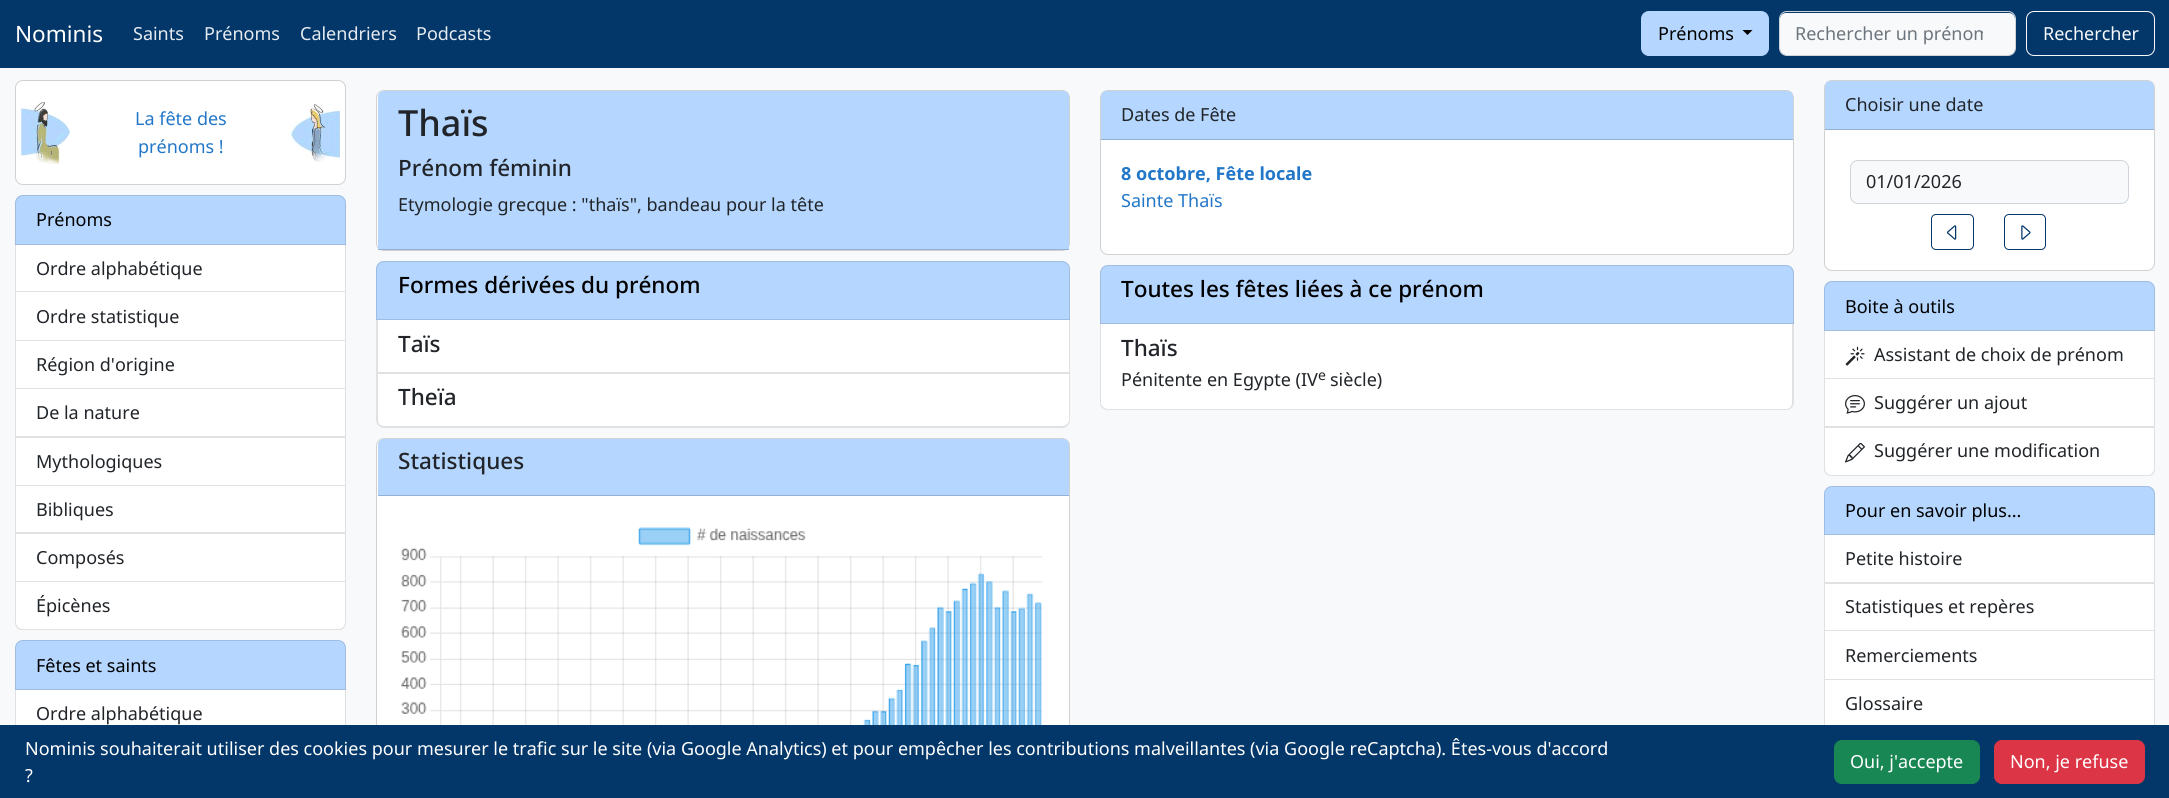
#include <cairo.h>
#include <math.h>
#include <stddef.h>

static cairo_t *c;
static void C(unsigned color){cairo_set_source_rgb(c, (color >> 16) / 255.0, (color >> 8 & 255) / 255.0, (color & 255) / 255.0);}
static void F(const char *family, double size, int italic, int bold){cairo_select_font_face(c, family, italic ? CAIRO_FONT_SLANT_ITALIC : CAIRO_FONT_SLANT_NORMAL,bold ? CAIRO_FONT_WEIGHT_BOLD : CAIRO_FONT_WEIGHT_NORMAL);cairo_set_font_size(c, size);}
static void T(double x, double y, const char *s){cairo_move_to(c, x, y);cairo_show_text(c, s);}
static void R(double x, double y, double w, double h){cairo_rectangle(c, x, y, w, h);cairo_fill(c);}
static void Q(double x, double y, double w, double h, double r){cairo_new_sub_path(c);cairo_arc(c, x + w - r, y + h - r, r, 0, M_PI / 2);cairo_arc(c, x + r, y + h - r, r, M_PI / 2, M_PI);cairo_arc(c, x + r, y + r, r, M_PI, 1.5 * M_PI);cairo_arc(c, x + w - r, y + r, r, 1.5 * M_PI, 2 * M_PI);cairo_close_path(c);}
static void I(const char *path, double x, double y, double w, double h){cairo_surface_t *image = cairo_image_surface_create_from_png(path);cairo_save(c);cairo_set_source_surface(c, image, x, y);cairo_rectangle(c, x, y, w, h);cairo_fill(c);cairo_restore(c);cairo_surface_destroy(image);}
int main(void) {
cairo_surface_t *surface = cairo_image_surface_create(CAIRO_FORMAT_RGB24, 2169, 798);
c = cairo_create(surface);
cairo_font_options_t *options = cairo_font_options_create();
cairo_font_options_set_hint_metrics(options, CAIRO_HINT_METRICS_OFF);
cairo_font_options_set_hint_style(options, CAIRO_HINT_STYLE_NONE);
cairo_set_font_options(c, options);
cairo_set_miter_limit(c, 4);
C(0xf8f9fa);
cairo_paint(c);
C(0x033769);
R(0,0,2169,68);
F("Noto Sans",22.5,0,0);
C(0xffffff);
T(15,42,"Nominis");
F("Noto Sans",18,0,0);
C(0xe6ebf0);
T(133,40,"Saints");
T(204,40,"Prénoms");
T(300,40,"Calendriers");
T(416,40,"Podcasts");
C(0xb5d6ff);
Q(1641.5,11.5,127,44,7.5);
cairo_fill_preserve(c);
cairo_set_line_width(c,1);
cairo_stroke(c);
C(0x000000);
T(1658,40,"Prénoms");
cairo_new_path(c);
cairo_move_to(c,1742.5,30);
cairo_line_to(c,1752.5,30);
cairo_line_to(c,1747.5,35);
cairo_close_path(c);
cairo_fill(c);
C(0xf8f9fa);
Q(1780,13,235,42,6);
cairo_fill(c);
Q(1779.5,11.5,236,44,7.5);
C(0xced4da);
cairo_stroke(c);
cairo_save(c);
cairo_rectangle(c,1795,21,188,24);
cairo_clip(c);
C(0x6c757d);
T(1795,40,"Rechercher un prénom");
cairo_restore(c);
Q(2026.5,11.5,128,44,7.5);
C(0xf8f9fa);
cairo_stroke(c);
T(2043,40,"Rechercher");
C(0xffffff);
Q(15,80,331,105,8);
cairo_fill(c);
Q(15.5,80.5,330,104,7.5);
cairo_set_source_rgba(c,0,0,0,0.18);
cairo_stroke(c);
I("1.png",21,102,49,62);
C(0x2277c8);
T(135,125,"La fête des");
T(138,153,"prénoms !");
I("2.png",290,103,50,59);
C(0xb5d6ff);
cairo_new_path(c);
cairo_move_to(c,23,195);
cairo_line_to(c,338,195);
cairo_curve_to(c,342.5,195,346,198.5,346,203);
cairo_line_to(c,346,245);
cairo_line_to(c,15,245);
cairo_line_to(c,15,203);
cairo_curve_to(c,15,198.5,18.5,195,23,195);
cairo_close_path(c);
cairo_fill(c);
cairo_new_path(c);
cairo_move_to(c,23,195.5);
cairo_line_to(c,338,195.5);
cairo_curve_to(c,342,195.5,345.5,199,345.5,203);
cairo_line_to(c,345.5,244.5);
cairo_line_to(c,15.5,244.5);
cairo_line_to(c,15.5,203);
cairo_curve_to(c,15.5,199,19,195.5,23,195.5);
cairo_close_path(c);
cairo_set_source_rgba(c,0,0,0,0.12);
cairo_stroke(c);
C(0x000000);
T(36,226,"Prénoms");
C(0xffffff);
R(15,245,331,338);
C(0xdfdfdf);
cairo_new_path(c);
cairo_move_to(c,346,245);
cairo_line_to(c,346,292);
cairo_line_to(c,345,291);
cairo_line_to(c,345,245);
cairo_close_path(c);
cairo_fill(c);
cairo_set_source_rgba(c,0,0,0,0.12);
cairo_new_path(c);
cairo_move_to(c,346,292);
cairo_line_to(c,15,292);
cairo_line_to(c,16,291);
cairo_line_to(c,345,291);
cairo_close_path(c);
cairo_fill(c);
cairo_new_path(c);
cairo_move_to(c,15,292);
cairo_line_to(c,15,245);
cairo_line_to(c,16,245);
cairo_line_to(c,16,291);
cairo_close_path(c);
cairo_fill(c);
C(0x212529);
T(36,275,"Ordre alphabétique");
C(0xdfdfdf);
cairo_new_path(c);
cairo_move_to(c,346,292);
cairo_line_to(c,346,341);
cairo_line_to(c,345,340);
cairo_line_to(c,345,292);
cairo_close_path(c);
cairo_fill(c);
cairo_set_source_rgba(c,0,0,0,0.12);
cairo_new_path(c);
cairo_move_to(c,346,341);
cairo_line_to(c,15,341);
cairo_line_to(c,16,340);
cairo_line_to(c,345,340);
cairo_close_path(c);
cairo_fill(c);
cairo_new_path(c);
cairo_move_to(c,15,341);
cairo_line_to(c,15,292);
cairo_line_to(c,16,292);
cairo_line_to(c,16,340);
cairo_close_path(c);
cairo_fill(c);
C(0x212529);
T(36,323,"Ordre statistique");
C(0xdfdfdf);
cairo_new_path(c);
cairo_move_to(c,346,341);
cairo_line_to(c,346,389);
cairo_line_to(c,345,388);
cairo_line_to(c,345,341);
cairo_close_path(c);
cairo_fill(c);
cairo_set_source_rgba(c,0,0,0,0.12);
cairo_new_path(c);
cairo_move_to(c,346,389);
cairo_line_to(c,15,389);
cairo_line_to(c,16,388);
cairo_line_to(c,345,388);
cairo_close_path(c);
cairo_fill(c);
cairo_new_path(c);
cairo_move_to(c,15,389);
cairo_line_to(c,15,341);
cairo_line_to(c,16,341);
cairo_line_to(c,16,388);
cairo_close_path(c);
cairo_fill(c);
C(0x212529);
T(36,371,"Région d'origine");
C(0xdfdfdf);
cairo_new_path(c);
cairo_move_to(c,346,389);
cairo_line_to(c,346,438);
cairo_line_to(c,345,436);
cairo_line_to(c,345,389);
cairo_close_path(c);
cairo_fill(c);
cairo_set_source_rgba(c,0,0,0,0.12);
cairo_new_path(c);
cairo_move_to(c,346,438);
cairo_line_to(c,15,438);
cairo_line_to(c,16,436);
cairo_line_to(c,345,436);
cairo_close_path(c);
cairo_fill(c);
cairo_new_path(c);
cairo_move_to(c,15,438);
cairo_line_to(c,15,389);
cairo_line_to(c,16,389);
cairo_line_to(c,16,436);
cairo_close_path(c);
cairo_fill(c);
C(0x212529);
T(36,419,"De la nature");
C(0xdfdfdf);
cairo_new_path(c);
cairo_move_to(c,346,438);
cairo_line_to(c,346,486);
cairo_line_to(c,345,485);
cairo_line_to(c,345,438);
cairo_close_path(c);
cairo_fill(c);
cairo_set_source_rgba(c,0,0,0,0.12);
cairo_new_path(c);
cairo_move_to(c,346,486);
cairo_line_to(c,15,486);
cairo_line_to(c,16,485);
cairo_line_to(c,345,485);
cairo_close_path(c);
cairo_fill(c);
cairo_new_path(c);
cairo_move_to(c,15,486);
cairo_line_to(c,15,438);
cairo_line_to(c,16,438);
cairo_line_to(c,16,485);
cairo_close_path(c);
cairo_fill(c);
C(0x212529);
T(36,468,"Mythologiques");
C(0xdfdfdf);
cairo_new_path(c);
cairo_move_to(c,346,486);
cairo_line_to(c,346,534);
cairo_line_to(c,345,532);
cairo_line_to(c,345,486);
cairo_close_path(c);
cairo_fill(c);
cairo_set_source_rgba(c,0,0,0,0.12);
cairo_new_path(c);
cairo_move_to(c,346,534);
cairo_line_to(c,15,534);
cairo_line_to(c,16,532);
cairo_line_to(c,345,532);
cairo_close_path(c);
cairo_fill(c);
cairo_new_path(c);
cairo_move_to(c,15,534);
cairo_line_to(c,15,486);
cairo_line_to(c,16,486);
cairo_line_to(c,16,532);
cairo_close_path(c);
cairo_fill(c);
C(0x212529);
T(36,516,"Bibliques");
C(0xdfdfdf);
cairo_new_path(c);
cairo_move_to(c,346,534);
cairo_line_to(c,346,582);
cairo_line_to(c,345,581);
cairo_line_to(c,345,534);
cairo_close_path(c);
cairo_fill(c);
cairo_set_source_rgba(c,0,0,0,0.12);
cairo_new_path(c);
cairo_move_to(c,346,582);
cairo_line_to(c,15,582);
cairo_line_to(c,16,581);
cairo_line_to(c,345,581);
cairo_close_path(c);
cairo_fill(c);
cairo_new_path(c);
cairo_move_to(c,15,582);
cairo_line_to(c,15,534);
cairo_line_to(c,16,534);
cairo_line_to(c,16,581);
cairo_close_path(c);
cairo_fill(c);
C(0x212529);
T(36,564,"Composés");
C(0xffffff);
cairo_new_path(c);
cairo_move_to(c,15,583);
cairo_line_to(c,346,583);
cairo_line_to(c,346,622);
cairo_curve_to(c,346,626.5,342.5,630,338,630);
cairo_line_to(c,23,630);
cairo_curve_to(c,18.5,630,15,626.5,15,622);
cairo_close_path(c);
cairo_fill(c);
cairo_set_source_rgba(c,0,0,0,0.12);
cairo_set_fill_rule(c,CAIRO_FILL_RULE_EVEN_ODD);
cairo_new_path(c);
cairo_move_to(c,15,582);
cairo_line_to(c,346,582);
cairo_line_to(c,346,622);
cairo_curve_to(c,346,627,343,630,339,630);
cairo_line_to(c,22,630);
cairo_curve_to(c,18,630,15,627,15,622);
cairo_close_path(c);
cairo_move_to(c,16,582);
cairo_line_to(c,345,582);
cairo_line_to(c,345,622);
cairo_curve_to(c,345,626,342,629,339,629);
cairo_line_to(c,22,629);
cairo_curve_to(c,19,629,16,626,16,622);
cairo_close_path(c);
cairo_fill(c);
C(0x212529);
T(36,612,"Épicènes");
C(0xb5d6ff);
cairo_new_path(c);
cairo_move_to(c,23,640);
cairo_line_to(c,338,640);
cairo_curve_to(c,342.5,640,346,643.5,346,648);
cairo_line_to(c,346,690);
cairo_line_to(c,15,690);
cairo_line_to(c,15,648);
cairo_curve_to(c,15,643.5,18.5,640,23,640);
cairo_close_path(c);
cairo_fill(c);
cairo_new_path(c);
cairo_move_to(c,23,640.5);
cairo_line_to(c,338,640.5);
cairo_curve_to(c,342,640.5,345.5,644,345.5,648);
cairo_line_to(c,345.5,689.5);
cairo_line_to(c,15.5,689.5);
cairo_line_to(c,15.5,648);
cairo_curve_to(c,15.5,644,19,640.5,23,640.5);
cairo_close_path(c);
cairo_set_source_rgba(c,0,0,0,0.12);
cairo_stroke(c);
C(0x000000);
T(36,672,"Fêtes et saints");
C(0xffffff);
R(15,690,330,35);
C(0xdfdfdf);
cairo_set_fill_rule(c,CAIRO_FILL_RULE_WINDING);
cairo_new_path(c);
cairo_move_to(c,346,690);
cairo_line_to(c,346,739);
cairo_line_to(c,345,738);
cairo_line_to(c,345,690);
cairo_close_path(c);
cairo_fill(c);
cairo_set_source_rgba(c,0,0,0,0.12);
cairo_new_path(c);
cairo_move_to(c,15,739);
cairo_line_to(c,15,690);
cairo_line_to(c,16,690);
cairo_line_to(c,16,738);
cairo_close_path(c);
cairo_fill(c);
C(0x212529);
T(36,720,"Ordre alphabétique");
C(0xffffff);
Q(376,90,694,161,8);
cairo_fill(c);
Q(376.5,90.5,693,160,7.5);
cairo_set_source_rgba(c,0,0,0,0.18);
cairo_stroke(c);
C(0xb5d6ff);
cairo_new_path(c);
cairo_move_to(c,384,91);
cairo_line_to(c,1063,91);
cairo_curve_to(c,1066.5,91,1069,93.5,1069,97);
cairo_line_to(c,1069,250);
cairo_line_to(c,378,250);
cairo_line_to(c,378,97);
cairo_curve_to(c,378,93.5,380.5,91,384,91);
cairo_close_path(c);
cairo_fill(c);
C(0x95b0d2);
R(378,249,691,1);
F("Noto Sans Medium",36,0,0);
C(0x212529);
T(398,136,"Thaïs");
F("Noto Sans Medium",22.5,0,0);
T(398,176,"Prénom féminin");
F("Noto Sans",18,0,0);
T(398,211,"Etymologie grecque : \"thaïs\", bandeau pour la tête");
C(0xb5d6ff);
cairo_new_path(c);
cairo_move_to(c,384,261);
cairo_line_to(c,1062,261);
cairo_curve_to(c,1066.5,261,1070,264.5,1070,269);
cairo_line_to(c,1070,320);
cairo_line_to(c,376,320);
cairo_line_to(c,376,269);
cairo_curve_to(c,376,264.5,379.5,261,384,261);
cairo_close_path(c);
cairo_fill(c);
cairo_new_path(c);
cairo_move_to(c,384,261.5);
cairo_line_to(c,1062,261.5);
cairo_curve_to(c,1066,261.5,1069.5,265,1069.5,269);
cairo_line_to(c,1069.5,319.5);
cairo_line_to(c,376.5,319.5);
cairo_line_to(c,376.5,269);
cairo_curve_to(c,376.5,265,380,261.5,384,261.5);
cairo_close_path(c);
cairo_set_source_rgba(c,0,0,0,0.12);
cairo_stroke(c);
F("Noto Sans Medium",22.5,0,0);
C(0x000000);
T(398,293,"Formes dérivées du prénom");
C(0xffffff);
R(376,320,694,54);
C(0xdfdfdf);
cairo_new_path(c);
cairo_move_to(c,1070,320);
cairo_line_to(c,1070,374);
cairo_line_to(c,1069,372);
cairo_line_to(c,1069,320);
cairo_close_path(c);
cairo_fill(c);
cairo_set_source_rgba(c,0,0,0,0.12);
cairo_new_path(c);
cairo_move_to(c,1070,374);
cairo_line_to(c,376,374);
cairo_line_to(c,378,372);
cairo_line_to(c,1069,372);
cairo_close_path(c);
cairo_fill(c);
cairo_new_path(c);
cairo_move_to(c,376,374);
cairo_line_to(c,376,320);
cairo_line_to(c,378,320);
cairo_line_to(c,378,372);
cairo_close_path(c);
cairo_fill(c);
C(0x212529);
T(398,352,"Taïs");
C(0xffffff);
cairo_new_path(c);
cairo_move_to(c,376,374);
cairo_line_to(c,1070,374);
cairo_line_to(c,1070,420);
cairo_curve_to(c,1070,424.5,1066.5,428,1062,428);
cairo_line_to(c,384,428);
cairo_curve_to(c,379.5,428,376,424.5,376,420);
cairo_close_path(c);
cairo_fill(c);
cairo_set_source_rgba(c,0,0,0,0.12);
cairo_set_fill_rule(c,CAIRO_FILL_RULE_EVEN_ODD);
cairo_new_path(c);
cairo_move_to(c,376,374);
cairo_line_to(c,1070,374);
cairo_line_to(c,1070,420);
cairo_curve_to(c,1070,424,1067,428,1062,428);
cairo_line_to(c,384,428);
cairo_curve_to(c,380,428,376,424,376,420);
cairo_close_path(c);
cairo_move_to(c,378,374);
cairo_line_to(c,1069,374);
cairo_line_to(c,1069,420);
cairo_curve_to(c,1069,423,1066,426,1062,426);
cairo_line_to(c,384,426);
cairo_curve_to(c,380,426,378,423,378,420);
cairo_close_path(c);
cairo_fill(c);
C(0x212529);
T(398,405,"Theïa");
C(0xffffff);
Q(376,438,694,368,8);
cairo_fill(c);
Q(376.5,438.5,693,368,7.5);
cairo_set_source_rgba(c,0,0,0,0.18);
cairo_stroke(c);
C(0xb5d6ff);
cairo_new_path(c);
cairo_move_to(c,384,439);
cairo_line_to(c,1063,439);
cairo_curve_to(c,1066.5,439,1069,441.5,1069,445);
cairo_line_to(c,1069,496);
cairo_line_to(c,378,496);
cairo_line_to(c,378,445);
cairo_curve_to(c,378,441.5,380.5,439,384,439);
cairo_close_path(c);
cairo_fill(c);
C(0x95b0d2);
R(378,495,691,1);
C(0x212529);
T(398,469,"Statistiques");
I("3.png",401,527,642,198);
C(0xffffff);
Q(1100,90,694,165,8);
cairo_fill(c);
Q(1100.5,90.5,693,164,7.5);
cairo_set_source_rgba(c,0,0,0,0.18);
cairo_stroke(c);
C(0xb5d6ff);
cairo_new_path(c);
cairo_move_to(c,1107,91);
cairo_line_to(c,1787,91);
cairo_curve_to(c,1790.5,91,1793,93.5,1793,97);
cairo_line_to(c,1793,140);
cairo_line_to(c,1101,140);
cairo_line_to(c,1101,97);
cairo_curve_to(c,1101,93.5,1103.5,91,1107,91);
cairo_close_path(c);
cairo_fill(c);
C(0x95b0d2);
R(1101,139,692,1);
F("Noto Sans",18,0,0);
C(0x212529);
T(1121,121,"Dates de Fête");
F("Noto Sans",18,0,1);
C(0x2277c8);
T(1121,180,"8 octobre, Fête locale");
F("Noto Sans",18,0,0);
T(1121,207,"Sainte Thaïs");
C(0xb5d6ff);
cairo_new_path(c);
cairo_move_to(c,1108,265);
cairo_line_to(c,1786,265);
cairo_curve_to(c,1790.5,265,1794,268.5,1794,273);
cairo_line_to(c,1794,324);
cairo_line_to(c,1100,324);
cairo_line_to(c,1100,273);
cairo_curve_to(c,1100,268.5,1103.5,265,1108,265);
cairo_close_path(c);
cairo_fill(c);
cairo_new_path(c);
cairo_move_to(c,1108,265.5);
cairo_line_to(c,1786,265.5);
cairo_curve_to(c,1790,265.5,1793.5,269,1793.5,273);
cairo_line_to(c,1793.5,323.5);
cairo_line_to(c,1100.5,323.5);
cairo_line_to(c,1100.5,273);
cairo_curve_to(c,1100.5,269,1104,265.5,1108,265.5);
cairo_close_path(c);
cairo_set_source_rgba(c,0,0,0,0.12);
cairo_stroke(c);
F("Noto Sans Medium",22.5,0,0);
C(0x000000);
T(1121,297,"Toutes les fêtes liées à ce prénom");
C(0xffffff);
cairo_new_path(c);
cairo_move_to(c,1100,324);
cairo_line_to(c,1794,324);
cairo_line_to(c,1794,402);
cairo_curve_to(c,1794,406.5,1790.5,410,1786,410);
cairo_line_to(c,1108,410);
cairo_curve_to(c,1103.5,410,1100,406.5,1100,402);
cairo_close_path(c);
cairo_fill(c);
cairo_set_source_rgba(c,0,0,0,0.12);
cairo_new_path(c);
cairo_move_to(c,1100,324);
cairo_line_to(c,1794,324);
cairo_line_to(c,1794,402);
cairo_curve_to(c,1794,407,1790,410,1786,410);
cairo_line_to(c,1108,410);
cairo_curve_to(c,1103,410,1100,407,1100,402);
cairo_close_path(c);
cairo_move_to(c,1101,324);
cairo_line_to(c,1792,324);
cairo_line_to(c,1792,402);
cairo_curve_to(c,1792,406,1790,409,1786,409);
cairo_line_to(c,1108,409);
cairo_curve_to(c,1104,409,1101,406,1101,402);
cairo_close_path(c);
cairo_fill(c);
C(0x212529);
T(1121,356,"Thaïs");
F("Noto Sans",18,0,0);
T(1121,386,"Pénitente en Egypte (IV");
F("Noto Sans",14,0,0);
T(1318,380,"e");
F("Noto Sans",18,0,0);
T(1330,386,"siècle)");
C(0xffffff);
Q(1824,80,331,191,8);
cairo_fill(c);
Q(1824.5,80.5,330,190,7.5);
cairo_set_source_rgba(c,0,0,0,0.18);
cairo_stroke(c);
C(0xb5d6ff);
cairo_new_path(c);
cairo_move_to(c,1831,81);
cairo_line_to(c,2148,81);
cairo_curve_to(c,2151.5,81,2154,83.5,2154,87);
cairo_line_to(c,2154,130);
cairo_line_to(c,1825,130);
cairo_line_to(c,1825,87);
cairo_curve_to(c,1825,83.5,1827.5,81,1831,81);
cairo_close_path(c);
cairo_fill(c);
C(0x95b0d2);
R(1825,129,329,1);
C(0x212529);
T(1845,111,"Choisir une date");
C(0xf8f9fa);
Q(1851,161,277,42,6);
cairo_fill(c);
Q(1850.5,160.5,278,43,7.5);
C(0xced4da);
cairo_stroke(c);
C(0x212529);
T(1866,188,"01/01/2026");
Q(1931.5,214.5,42,35,4.5);
C(0x033769);
cairo_stroke(c);
I("4.png",1946,225,11,15);
Q(2004.5,214.5,41,35,4.5);
cairo_stroke(c);
I("5.png",2021,225,10,15);
C(0xb5d6ff);
cairo_new_path(c);
cairo_move_to(c,1832,281);
cairo_line_to(c,2147,281);
cairo_curve_to(c,2151.5,281,2155,284.5,2155,289);
cairo_line_to(c,2155,331);
cairo_line_to(c,1824,331);
cairo_line_to(c,1824,289);
cairo_curve_to(c,1824,284.5,1827.5,281,1832,281);
cairo_close_path(c);
cairo_fill(c);
cairo_new_path(c);
cairo_move_to(c,1832,281.5);
cairo_line_to(c,2147,281.5);
cairo_curve_to(c,2151,281.5,2154.5,285,2154.5,289);
cairo_line_to(c,2154.5,330.5);
cairo_line_to(c,1824.5,330.5);
cairo_line_to(c,1824.5,289);
cairo_curve_to(c,1824.5,285,1828,281.5,1832,281.5);
cairo_close_path(c);
cairo_set_source_rgba(c,0,0,0,0.12);
cairo_stroke(c);
C(0x000000);
T(1845,313,"Boite à outils");
C(0xffffff);
R(1824,331,331,97);
C(0xdfdfdf);
cairo_set_fill_rule(c,CAIRO_FILL_RULE_WINDING);
cairo_new_path(c);
cairo_move_to(c,2155,331);
cairo_line_to(c,2155,379);
cairo_line_to(c,2154,378);
cairo_line_to(c,2154,331);
cairo_close_path(c);
cairo_fill(c);
cairo_set_source_rgba(c,0,0,0,0.12);
cairo_new_path(c);
cairo_move_to(c,2155,379);
cairo_line_to(c,1824,379);
cairo_line_to(c,1825,378);
cairo_line_to(c,2154,378);
cairo_close_path(c);
cairo_fill(c);
cairo_new_path(c);
cairo_move_to(c,1824,379);
cairo_line_to(c,1824,331);
cairo_line_to(c,1825,331);
cairo_line_to(c,1825,378);
cairo_close_path(c);
cairo_fill(c);
I("6.png",1845,346,20,20);
C(0x212529);
T(1874,361,"Assistant de choix de prénom");
C(0xdfdfdf);
cairo_new_path(c);
cairo_move_to(c,2155,379);
cairo_line_to(c,2155,428);
cairo_line_to(c,2154,426);
cairo_line_to(c,2154,379);
cairo_close_path(c);
cairo_fill(c);
cairo_set_source_rgba(c,0,0,0,0.12);
cairo_new_path(c);
cairo_move_to(c,2155,428);
cairo_line_to(c,1824,428);
cairo_line_to(c,1825,426);
cairo_line_to(c,2154,426);
cairo_close_path(c);
cairo_fill(c);
cairo_new_path(c);
cairo_move_to(c,1824,428);
cairo_line_to(c,1824,379);
cairo_line_to(c,1825,379);
cairo_line_to(c,1825,426);
cairo_close_path(c);
cairo_fill(c);
I("7.png",1845,395,20,19);
C(0x212529);
T(1874,409,"Suggérer un ajout");
C(0xffffff);
cairo_new_path(c);
cairo_move_to(c,1824,428);
cairo_line_to(c,2155,428);
cairo_line_to(c,2155,468);
cairo_curve_to(c,2155,472.5,2151.5,476,2147,476);
cairo_line_to(c,1832,476);
cairo_curve_to(c,1827.5,476,1824,472.5,1824,468);
cairo_close_path(c);
cairo_fill(c);
cairo_set_source_rgba(c,0,0,0,0.12);
cairo_set_fill_rule(c,CAIRO_FILL_RULE_EVEN_ODD);
cairo_new_path(c);
cairo_move_to(c,1824,428);
cairo_line_to(c,2155,428);
cairo_line_to(c,2155,469);
cairo_curve_to(c,2155,473,2152,476,2148,476);
cairo_line_to(c,1831,476);
cairo_curve_to(c,1827,476,1824,473,1824,469);
cairo_close_path(c);
cairo_move_to(c,1825,428);
cairo_line_to(c,2154,428);
cairo_line_to(c,2154,469);
cairo_curve_to(c,2154,472,2151,475,2148,475);
cairo_line_to(c,1831,475);
cairo_curve_to(c,1828,475,1825,472,1825,469);
cairo_close_path(c);
cairo_fill(c);
I("8.png",1845,443,20,20);
C(0x212529);
T(1874,457,"Suggérer une modification");
C(0xb5d6ff);
cairo_new_path(c);
cairo_move_to(c,1832,486);
cairo_line_to(c,2147,486);
cairo_curve_to(c,2151.5,486,2155,489.5,2155,494);
cairo_line_to(c,2155,535);
cairo_line_to(c,1824,535);
cairo_line_to(c,1824,494);
cairo_curve_to(c,1824,489.5,1827.5,486,1832,486);
cairo_close_path(c);
cairo_fill(c);
cairo_new_path(c);
cairo_move_to(c,1832,486.5);
cairo_line_to(c,2147,486.5);
cairo_curve_to(c,2151,486.5,2154.5,490,2154.5,494);
cairo_line_to(c,2154.5,534.5);
cairo_line_to(c,1824.5,534.5);
cairo_line_to(c,1824.5,494);
cairo_curve_to(c,1824.5,490,1828,486.5,1832,486.5);
cairo_close_path(c);
cairo_set_source_rgba(c,0,0,0,0.12);
cairo_stroke(c);
C(0x000000);
T(1845,517,"Pour en savoir plus...");
C(0xffffff);
R(1824,535,331,145);
C(0xdfdfdf);
cairo_set_fill_rule(c,CAIRO_FILL_RULE_WINDING);
cairo_new_path(c);
cairo_move_to(c,2155,535);
cairo_line_to(c,2155,584);
cairo_line_to(c,2154,582);
cairo_line_to(c,2154,535);
cairo_close_path(c);
cairo_fill(c);
cairo_set_source_rgba(c,0,0,0,0.12);
cairo_new_path(c);
cairo_move_to(c,2155,584);
cairo_line_to(c,1824,584);
cairo_line_to(c,1825,582);
cairo_line_to(c,2154,582);
cairo_close_path(c);
cairo_fill(c);
cairo_new_path(c);
cairo_move_to(c,1824,584);
cairo_line_to(c,1824,535);
cairo_line_to(c,1825,535);
cairo_line_to(c,1825,582);
cairo_close_path(c);
cairo_fill(c);
C(0x212529);
T(1845,565,"Petite histoire");
C(0xdfdfdf);
cairo_new_path(c);
cairo_move_to(c,2155,584);
cairo_line_to(c,2155,631);
cairo_line_to(c,2154,630);
cairo_line_to(c,2154,584);
cairo_close_path(c);
cairo_fill(c);
cairo_set_source_rgba(c,0,0,0,0.12);
cairo_new_path(c);
cairo_move_to(c,2155,631);
cairo_line_to(c,1824,631);
cairo_line_to(c,1825,630);
cairo_line_to(c,2154,630);
cairo_close_path(c);
cairo_fill(c);
cairo_new_path(c);
cairo_move_to(c,1824,631);
cairo_line_to(c,1824,584);
cairo_line_to(c,1825,584);
cairo_line_to(c,1825,630);
cairo_close_path(c);
cairo_fill(c);
C(0x212529);
T(1845,613,"Statistiques et repères");
C(0xdfdfdf);
cairo_new_path(c);
cairo_move_to(c,2155,631);
cairo_line_to(c,2155,680);
cairo_line_to(c,2154,679);
cairo_line_to(c,2154,631);
cairo_close_path(c);
cairo_fill(c);
cairo_set_source_rgba(c,0,0,0,0.12);
cairo_new_path(c);
cairo_move_to(c,2155,680);
cairo_line_to(c,1824,680);
cairo_line_to(c,1825,679);
cairo_line_to(c,2154,679);
cairo_close_path(c);
cairo_fill(c);
cairo_new_path(c);
cairo_move_to(c,1824,680);
cairo_line_to(c,1824,631);
cairo_line_to(c,1825,631);
cairo_line_to(c,1825,679);
cairo_close_path(c);
cairo_fill(c);
C(0x212529);
T(1845,662,"Remerciements");
C(0xffffff);
R(1824,680,330,45);
C(0xdfdfdf);
cairo_new_path(c);
cairo_move_to(c,2155,680);
cairo_line_to(c,2155,729);
cairo_line_to(c,2154,728);
cairo_line_to(c,2154,680);
cairo_close_path(c);
cairo_fill(c);
cairo_set_source_rgba(c,0,0,0,0.12);
cairo_new_path(c);
cairo_move_to(c,1824,729);
cairo_line_to(c,1824,680);
cairo_line_to(c,1825,680);
cairo_line_to(c,1825,728);
cairo_close_path(c);
cairo_fill(c);
C(0x212529);
T(1845,710,"Glossaire");
C(0x033769);
R(0,725,2169,73);
C(0xffffff);
T(25,755,"Nominis souhaiterait utiliser des cookies pour mesurer le trafic sur le site (via Google Analytics) et pour empêcher les contributions malveillantes (via Google reCaptcha). Êtes-vous d'accord");
T(25,782,"?");
C(0x198754);
Q(1834.5,740.5,145,43,7.5);
cairo_fill_preserve(c);
cairo_stroke(c);
C(0xffffff);
T(1850,768,"Oui, j'accepte");
C(0xdc3545);
Q(1994.5,740.5,150,43,7.5);
cairo_fill_preserve(c);
cairo_stroke(c);
C(0xffffff);
T(2010,768,"Non, je refuse");
cairo_surface_write_to_png(surface, "o.png");
cairo_font_options_destroy(options);
cairo_destroy(c);
cairo_surface_destroy(surface);
return 0;
}
